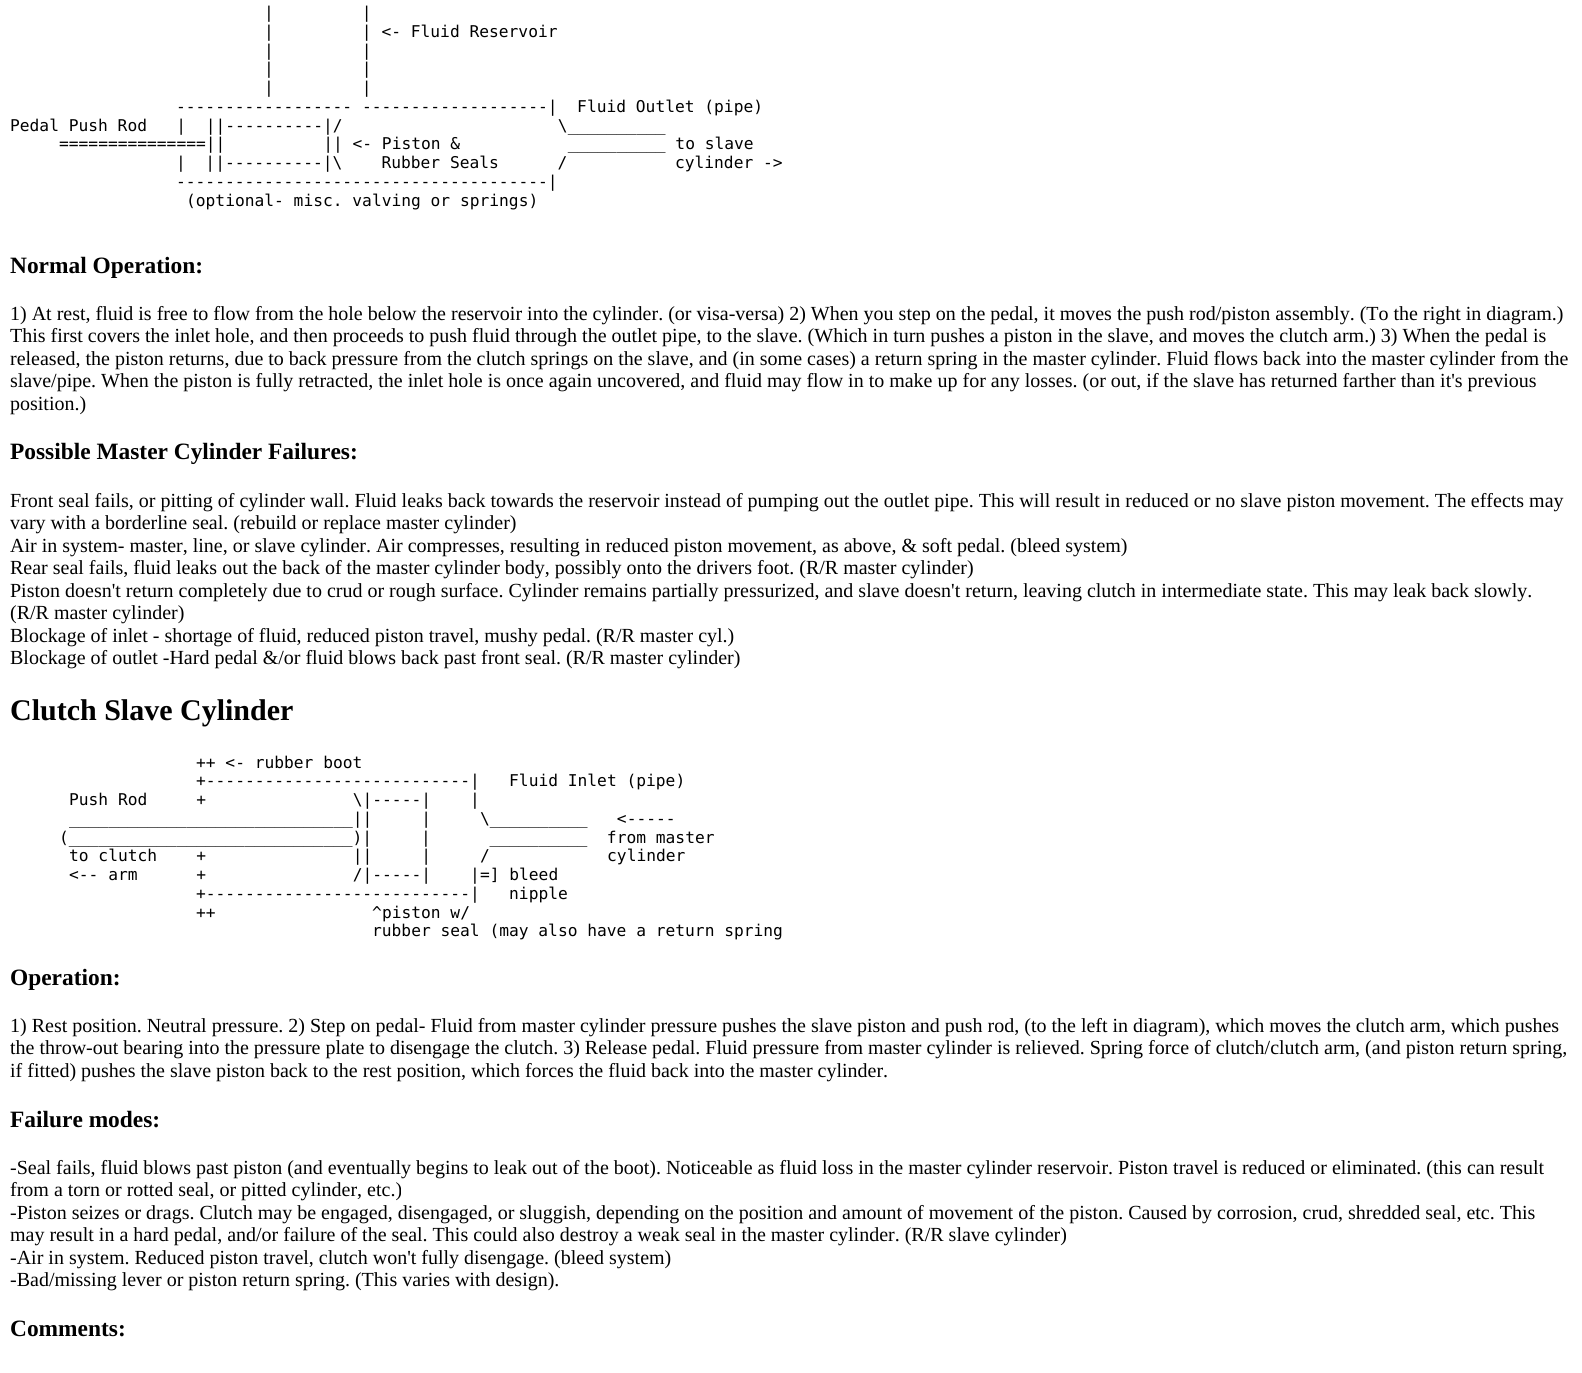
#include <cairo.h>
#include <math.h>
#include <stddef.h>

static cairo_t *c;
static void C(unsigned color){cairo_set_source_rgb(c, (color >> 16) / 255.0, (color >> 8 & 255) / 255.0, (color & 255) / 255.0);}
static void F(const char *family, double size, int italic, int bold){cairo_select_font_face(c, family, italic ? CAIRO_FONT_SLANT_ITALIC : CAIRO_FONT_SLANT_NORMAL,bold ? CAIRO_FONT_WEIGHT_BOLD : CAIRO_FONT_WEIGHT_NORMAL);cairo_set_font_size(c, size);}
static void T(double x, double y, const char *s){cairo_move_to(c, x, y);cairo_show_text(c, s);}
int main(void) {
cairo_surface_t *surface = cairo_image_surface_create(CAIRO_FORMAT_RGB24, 1582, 1373);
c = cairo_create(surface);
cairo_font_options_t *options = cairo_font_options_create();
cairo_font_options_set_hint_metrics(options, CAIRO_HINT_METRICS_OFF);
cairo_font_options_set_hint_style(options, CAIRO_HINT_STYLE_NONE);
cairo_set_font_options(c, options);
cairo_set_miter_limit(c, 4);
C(0xffffff);
cairo_paint(c);
F("DejaVu Sans Mono",16.25,0,0);
C(0x000000);
T(264,18,"|         |");
T(264,37,"|         | <- Fluid Reservoir");
T(264,56,"|         |");
T(264,74,"|         |");
T(264,93,"|         |");
T(176,112,"------------------ -------------------|  Fluid Outlet (pipe)");
T(10,131,"Pedal Push Rod   |  ||----------|/                      \\__________");
T(59,149,"===============||          || <- Piston &           __________ to slave");
T(176,168,"|  ||----------|\\    Rubber Seals      /           cylinder ->");
T(176,187,"--------------------------------------|");
T(186,206,"(optional- misc. valving or springs)");
F("Liberation Serif",23.4,0,1);
T(10,273,"Normal Operation:");
F("Liberation Serif",20,0,0);
T(10,320,"1) At rest, fluid is free to flow from the hole below the reservoir into the cylinder. (or visa-versa) 2) When you step on the pedal, it moves the push rod/piston assembly. (To the right in diagram.)");
T(10,342,"This first covers the inlet hole, and then proceeds to push fluid through the outlet pipe, to the slave. (Which in turn pushes a piston in the slave, and moves the clutch arm.) 3) When the pedal is");
T(10,365,"released, the piston returns, due to back pressure from the clutch springs on the slave, and (in some cases) a return spring in the master cylinder. Fluid flows back into the master cylinder from the");
T(10,387,"slave/pipe. When the piston is fully retracted, the inlet hole is once again uncovered, and fluid may flow in to make up for any losses. (or out, if the slave has returned farther than it's previous");
T(10,410,"position.)");
F("Liberation Serif",23.4,0,1);
T(10,459,"Possible Master Cylinder Failures:");
F("Liberation Serif",20,0,0);
T(10,507,"Front seal fails, or pitting of cylinder wall. Fluid leaks back towards the reservoir instead of pumping out the outlet pipe. This will result in reduced or no slave piston movement. The effects may");
T(10,529,"vary with a borderline seal. (rebuild or replace master cylinder)");
T(10,552,"Air in system- master, line, or slave cylinder. Air compresses, resulting in reduced piston movement, as above, & soft pedal. (bleed system)");
T(10,574,"Rear seal fails, fluid leaks out the back of the master cylinder body, possibly onto the drivers foot. (R/R master cylinder)");
T(10,597,"Piston doesn't return completely due to crud or rough surface. Cylinder remains partially pressurized, and slave doesn't return, leaving clutch in intermediate state. This may leak back slowly.");
T(10,619,"(R/R master cylinder)");
T(10,642,"Blockage of inlet - shortage of fluid, reduced piston travel, mushy pedal. (R/R master cyl.)");
T(10,664,"Blockage of outlet -Hard pedal &/or fluid blows back past front seal. (R/R master cylinder)");
F("Liberation Serif",30,0,1);
T(10,720,"Clutch Slave Cylinder");
F("DejaVu Sans Mono",16.25,0,0);
T(196,768,"++ <- rubber boot");
T(196,786,"+---------------------------|   Fluid Inlet (pipe)");
T(69,805,"Push Rod     +               \\|-----|    |");
T(69,824,"_____________________________||     |     \\__________   <-----");
T(59,843,"(_____________________________)|     |      __________  from master");
T(69,861,"to clutch    +               ||     |     /            cylinder");
T(69,880,"<-- arm      +               /|-----|    |=] bleed");
T(196,899,"+---------------------------|   nipple");
T(196,918,"++                ^piston w/");
T(372,936,"rubber seal (may also have a return spring");
F("Liberation Serif",23.4,0,1);
T(10,985,"Operation:");
F("Liberation Serif",20,0,0);
T(10,1032,"1) Rest position. Neutral pressure. 2) Step on pedal- Fluid from master cylinder pressure pushes the slave piston and push rod, (to the left in diagram), which moves the clutch arm, which pushes");
T(10,1054,"the throw-out bearing into the pressure plate to disengage the clutch. 3) Release pedal. Fluid pressure from master cylinder is relieved. Spring force of clutch/clutch arm, (and piston return spring,");
T(10,1077,"if fitted) pushes the slave piston back to the rest position, which forces the fluid back into the master cylinder.");
F("Liberation Serif",23.4,0,1);
T(10,1127,"Failure modes:");
F("Liberation Serif",20,0,0);
T(10,1174,"-Seal fails, fluid blows past piston (and eventually begins to leak out of the boot). Noticeable as fluid loss in the master cylinder reservoir. Piston travel is reduced or eliminated. (this can result");
T(10,1196,"from a torn or rotted seal, or pitted cylinder, etc.)");
T(10,1219,"-Piston seizes or drags. Clutch may be engaged, disengaged, or sluggish, depending on the position and amount of movement of the piston. Caused by corrosion, crud, shredded seal, etc. This");
T(10,1241,"may result in a hard pedal, and/or failure of the seal. This could also destroy a weak seal in the master cylinder. (R/R slave cylinder)");
T(10,1264,"-Air in system. Reduced piston travel, clutch won't fully disengage. (bleed system)");
T(10,1286,"-Bad/missing lever or piston return spring. (This varies with design).");
F("Liberation Serif",23.4,0,1);
T(10,1336,"Comments:");
cairo_surface_write_to_png(surface, "o.png");
cairo_font_options_destroy(options);
cairo_destroy(c);
cairo_surface_destroy(surface);
return 0;
}
